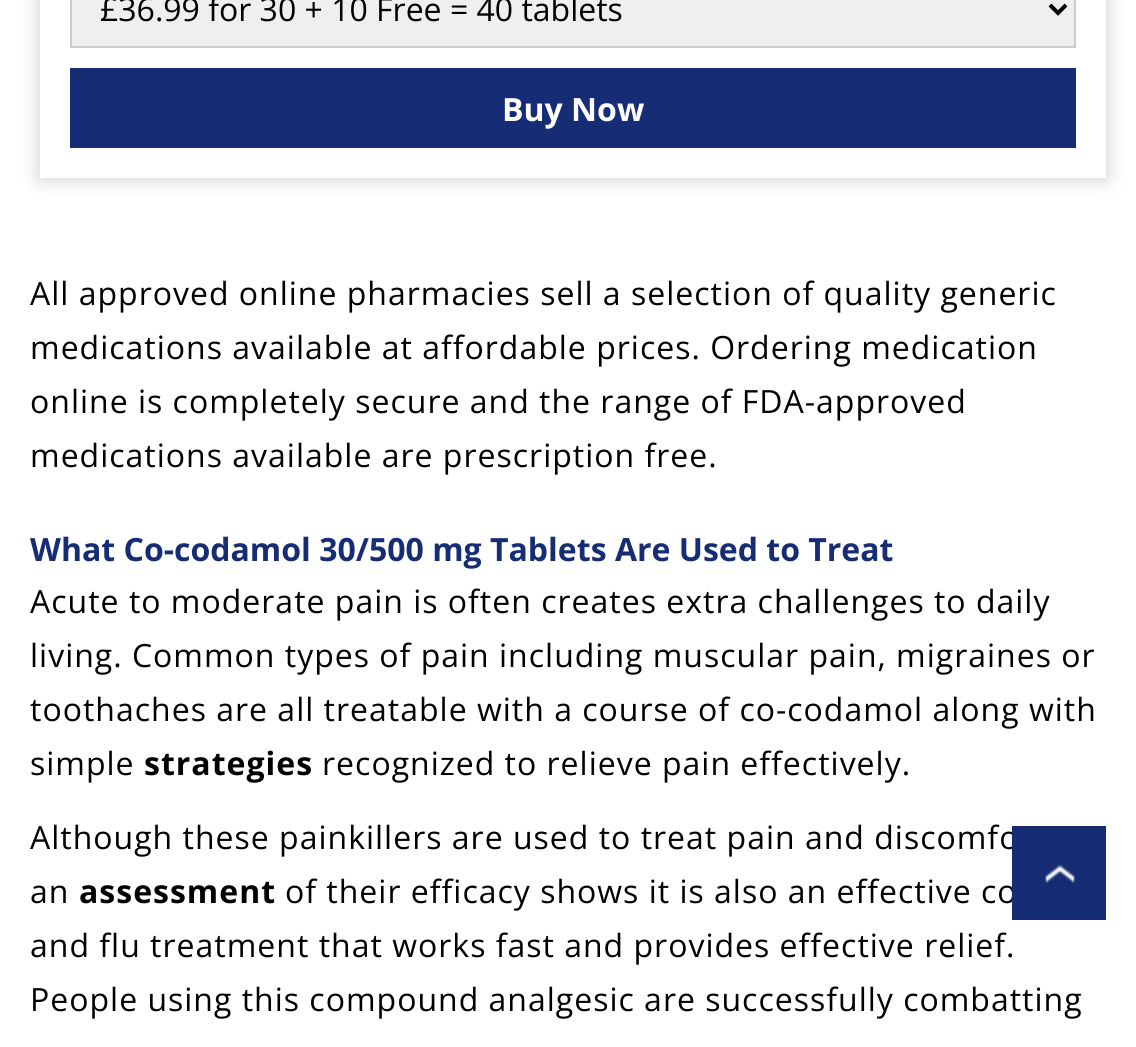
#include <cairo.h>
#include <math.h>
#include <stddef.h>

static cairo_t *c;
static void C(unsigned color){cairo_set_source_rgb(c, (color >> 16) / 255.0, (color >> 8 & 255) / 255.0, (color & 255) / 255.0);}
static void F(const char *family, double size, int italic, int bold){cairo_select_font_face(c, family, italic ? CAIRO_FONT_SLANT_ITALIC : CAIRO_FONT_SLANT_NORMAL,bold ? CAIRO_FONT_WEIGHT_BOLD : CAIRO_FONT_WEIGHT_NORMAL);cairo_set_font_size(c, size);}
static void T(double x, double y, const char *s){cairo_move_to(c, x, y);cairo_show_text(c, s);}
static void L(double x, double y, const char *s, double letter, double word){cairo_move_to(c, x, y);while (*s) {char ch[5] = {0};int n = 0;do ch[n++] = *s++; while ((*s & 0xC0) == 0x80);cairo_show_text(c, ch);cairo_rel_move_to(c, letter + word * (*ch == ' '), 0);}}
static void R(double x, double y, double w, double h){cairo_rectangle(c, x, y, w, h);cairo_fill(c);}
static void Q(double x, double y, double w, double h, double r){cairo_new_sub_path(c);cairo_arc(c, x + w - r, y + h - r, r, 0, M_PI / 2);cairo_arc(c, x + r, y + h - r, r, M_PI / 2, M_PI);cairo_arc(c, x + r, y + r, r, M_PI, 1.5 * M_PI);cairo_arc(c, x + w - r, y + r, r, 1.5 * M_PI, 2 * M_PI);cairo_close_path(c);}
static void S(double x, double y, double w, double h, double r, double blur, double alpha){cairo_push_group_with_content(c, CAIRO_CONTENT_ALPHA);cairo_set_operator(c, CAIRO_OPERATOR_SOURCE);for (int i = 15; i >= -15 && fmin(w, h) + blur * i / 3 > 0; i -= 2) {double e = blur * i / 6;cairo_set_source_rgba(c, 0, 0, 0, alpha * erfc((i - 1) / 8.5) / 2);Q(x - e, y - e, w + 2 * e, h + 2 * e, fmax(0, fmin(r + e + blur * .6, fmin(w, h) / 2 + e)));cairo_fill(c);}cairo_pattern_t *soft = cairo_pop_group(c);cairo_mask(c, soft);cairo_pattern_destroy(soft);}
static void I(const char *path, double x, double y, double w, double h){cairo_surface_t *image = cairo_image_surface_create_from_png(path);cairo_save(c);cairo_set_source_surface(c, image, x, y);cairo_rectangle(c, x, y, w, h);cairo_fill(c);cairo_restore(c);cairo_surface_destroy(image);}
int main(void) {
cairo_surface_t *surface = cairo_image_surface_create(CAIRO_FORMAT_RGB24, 1136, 1047);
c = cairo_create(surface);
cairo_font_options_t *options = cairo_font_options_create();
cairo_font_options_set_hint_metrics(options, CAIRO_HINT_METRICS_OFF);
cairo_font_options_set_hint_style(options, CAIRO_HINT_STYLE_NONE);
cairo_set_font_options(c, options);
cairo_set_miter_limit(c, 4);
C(0xffffff);
cairo_paint(c);
cairo_save(c);
cairo_set_fill_rule(c,CAIRO_FILL_RULE_EVEN_ODD);
cairo_new_path(c);
cairo_move_to(c,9,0);
cairo_line_to(c,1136,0);
cairo_line_to(c,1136,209);
cairo_line_to(c,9,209);
cairo_close_path(c);
cairo_move_to(c,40,-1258);
cairo_line_to(c,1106,-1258);
cairo_line_to(c,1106,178);
cairo_line_to(c,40,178);
cairo_close_path(c);
cairo_clip(c);
C(0xcccccc);
S(40,-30,1066,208,0,10,1);
cairo_restore(c);
C(0xefefef);
cairo_rectangle(c,71,-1,1004,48);
cairo_fill_preserve(c);
C(0xcccccc);
cairo_stroke(c);
cairo_new_path(c);
cairo_move_to(c,1050,5);
cairo_line_to(c,1058,13);
cairo_line_to(c,1066,5);
C(0x000000);
cairo_set_line_width(c,4);
cairo_stroke(c);
F("Open Sans",32,0,0);
T(100,21,"£36.99 for 30 + 10 Free = 40 tablets");
C(0x162c75);
R(70,68,1006,80);
F("Open Sans",32,0,1);
C(0xffffff);
T(502,121,"Buy Now");
F("Open Sans",32,0,0);
C(0x000000);
L(30,305,"All approved online pharmacies sell a selection of quality generic",1,0);
L(30,359,"medications available at affordable prices. Ordering medication",1,0);
L(30,413,"online is completely secure and the range of FDA-approved",1,0);
L(30,467,"medications available are prescription free.",1,0);
F("Open Sans",32,0,1);
C(0x162c75);
T(30,561,"What Co-codamol 30/500 mg Tablets Are Used to Treat");
F("Open Sans",32,0,0);
C(0x000000);
L(30,613,"Acute to moderate pain is often creates extra challenges to daily",1,0);
L(30,667,"living. Common types of pain including muscular pain, migraines or",1,0);
L(30,721,"toothaches are all treatable with a course of co-codamol along with",1,0);
L(30,775,"simple",1,0);
F("Open Sans",32,0,1);
L(144,775,"strategies",1,0);
F("Open Sans",32,0,0);
L(322,775,"recognized to relieve pain effectively.",1,0);
L(30,849,"Although these painkillers are used to treat pain and discomfo",1,0);
L(30,903,"an",1,0);
F("Open Sans",32,0,1);
L(79,903,"assessment",1,0);
F("Open Sans",32,0,0);
L(285,903,"of their efficacy shows it is also an effective co",1,0);
L(30,957,"and flu treatment that works fast and provides effective relief.",1,0);
L(30,1011,"People using this compound analgesic are successfully combatting",1,0);
I("1.png",1012,826,94,94);
cairo_surface_write_to_png(surface, "o.png");
cairo_font_options_destroy(options);
cairo_destroy(c);
cairo_surface_destroy(surface);
return 0;
}
